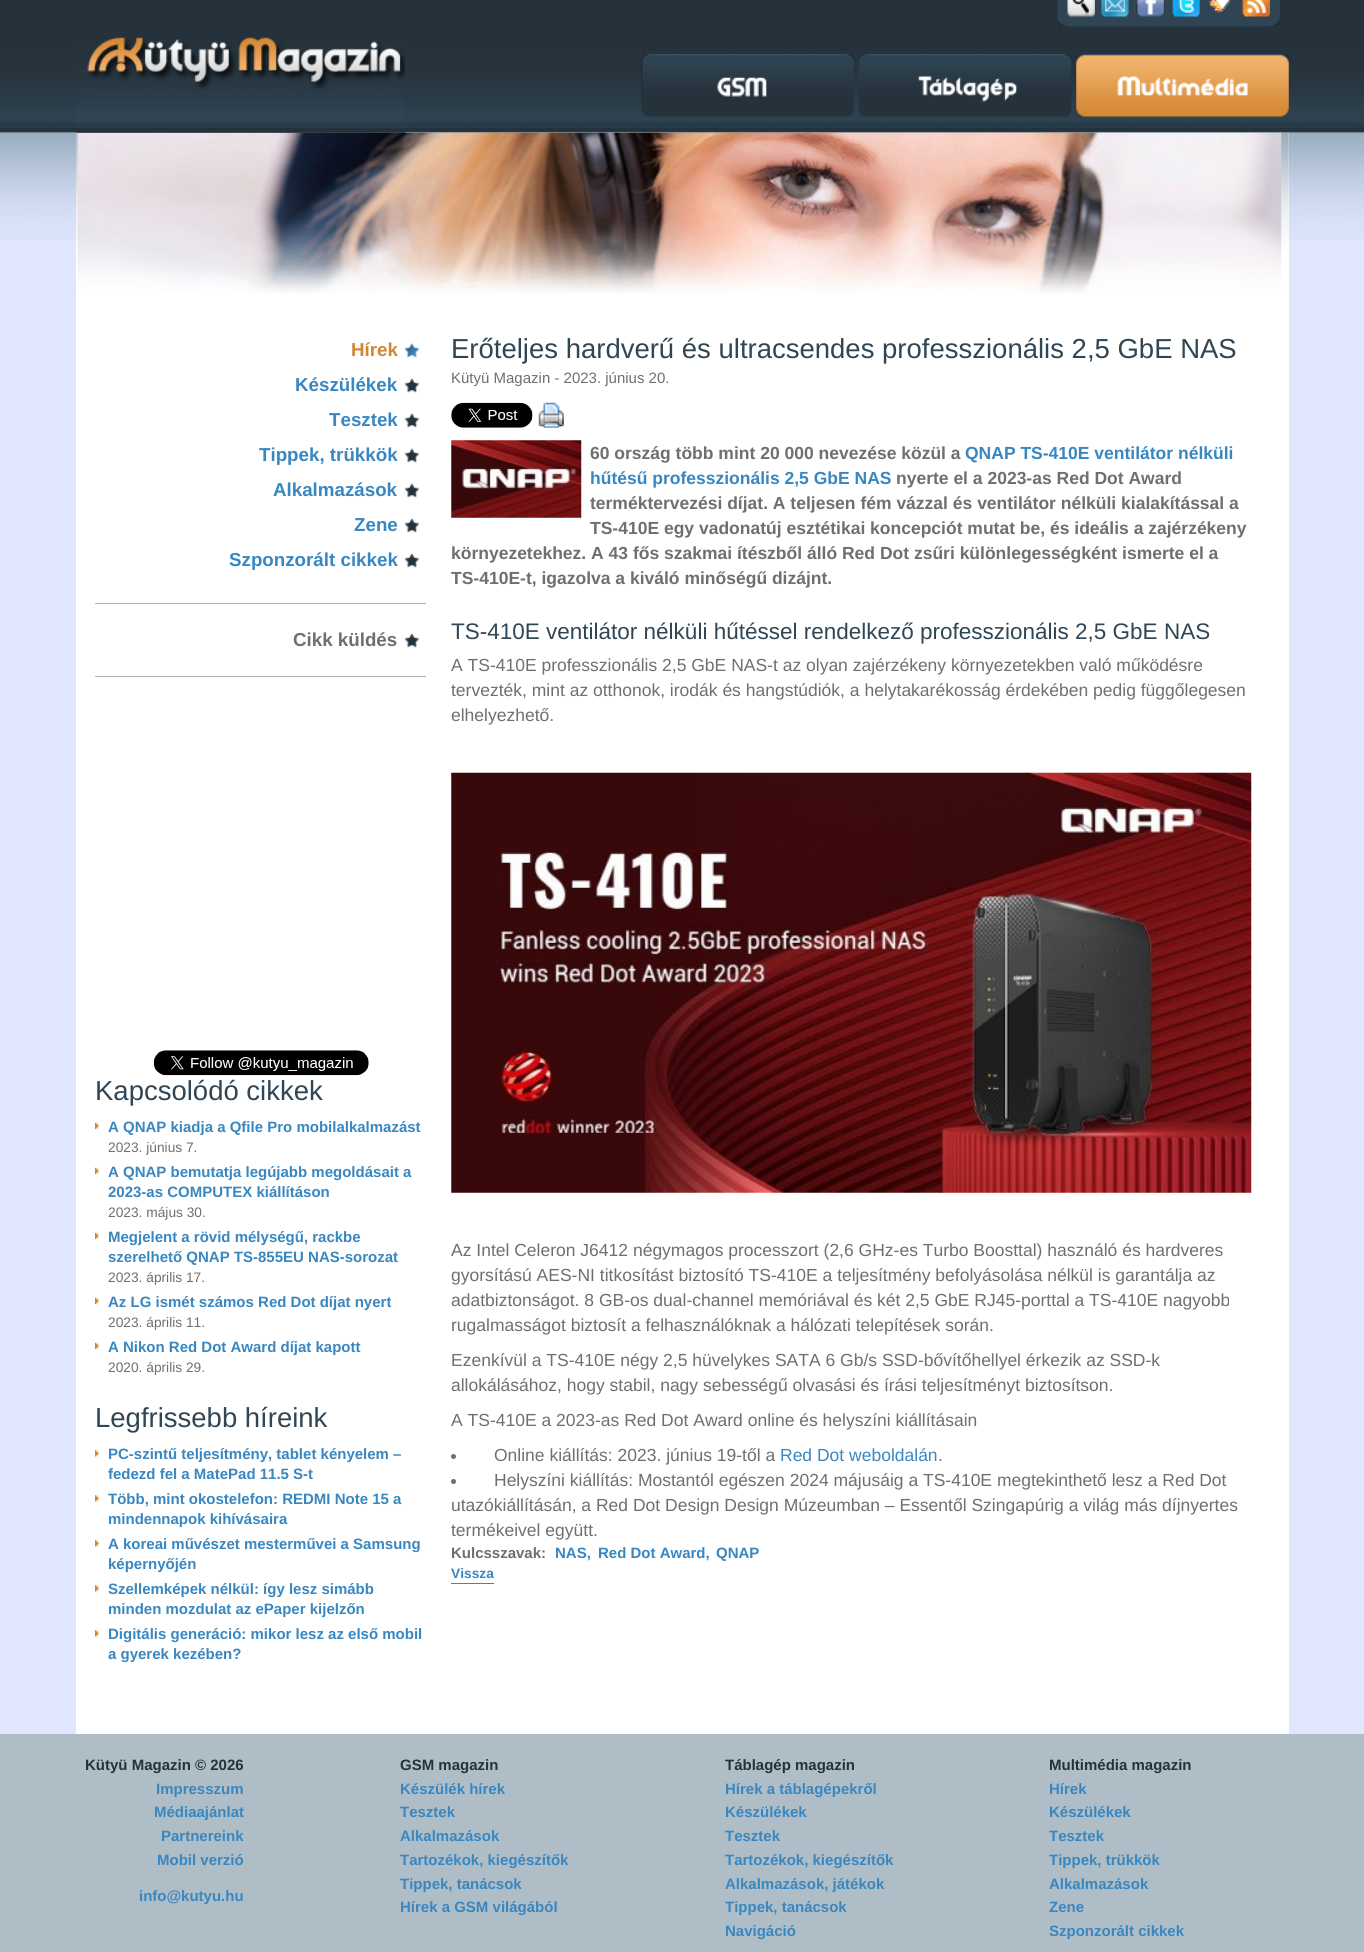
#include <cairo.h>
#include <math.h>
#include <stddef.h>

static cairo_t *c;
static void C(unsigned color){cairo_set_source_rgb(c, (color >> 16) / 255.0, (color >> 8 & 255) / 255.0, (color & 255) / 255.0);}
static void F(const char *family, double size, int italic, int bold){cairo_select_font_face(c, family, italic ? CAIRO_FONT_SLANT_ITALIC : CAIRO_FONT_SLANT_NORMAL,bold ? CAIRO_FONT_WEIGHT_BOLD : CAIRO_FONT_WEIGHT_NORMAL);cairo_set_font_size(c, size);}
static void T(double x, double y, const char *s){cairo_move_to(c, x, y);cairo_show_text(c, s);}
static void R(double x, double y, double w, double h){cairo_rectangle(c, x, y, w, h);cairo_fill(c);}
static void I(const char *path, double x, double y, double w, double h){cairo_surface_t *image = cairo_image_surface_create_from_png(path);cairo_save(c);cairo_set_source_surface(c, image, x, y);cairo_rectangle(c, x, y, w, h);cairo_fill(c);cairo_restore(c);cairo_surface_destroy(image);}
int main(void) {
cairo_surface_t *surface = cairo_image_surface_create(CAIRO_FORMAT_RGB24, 1364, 1952);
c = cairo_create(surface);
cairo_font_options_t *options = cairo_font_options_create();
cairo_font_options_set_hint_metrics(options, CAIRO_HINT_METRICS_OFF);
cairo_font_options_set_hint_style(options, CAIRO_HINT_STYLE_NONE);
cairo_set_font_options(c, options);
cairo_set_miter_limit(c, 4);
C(0xffffff);
cairo_paint(c);
I("1.png",0,0,1364,133);
I("2.png",1057,0,223,27);
I("3.png",1067,0,28,17);
I("4.png",1101,0,28,17);
I("5.png",1136,0,29,17);
I("6.png",1172,0,28,17);
I("7.png",1208,0,24,13);
I("8.png",1242,0,28,17);
I("13.png",0,132,1364,108);
C(0xe0e6fe);
R(0,240,1364,1494);
C(0xffffff);
R(76,133,1213,1601);
I("14.png",76,132,1213,117);
I("15.png",77,132,1205,163);
I("9.png",76,37,329,96);
I("10.png",641,54,213,63);
I("11.png",858,54,214,63);
I("12.png",1076,54,213,63);
I("16.png",404,342,16,16);
F("Liberation Sans",18.75,0,1);
C(0xd38632);
T(351,356,"Hírek");
I("17.png",404,378,16,15);
C(0x3887c1);
T(295,391,"Készülékek");
I("17.png",404,413,16,15);
T(329,426,"Tesztek");
I("17.png",404,448,16,15);
T(259,461,"Tippek, trükkök");
I("17.png",404,483,16,15);
T(273,496,"Alkalmazások");
I("17.png",404,518,16,15);
T(354,531,"Zene");
I("17.png",404,553,16,15);
T(229,566,"Szponzorált cikkek");
C(0xafafaf);
R(95,603,331,1);
R(95,676,331,1);
I("17.png",404,633,16,15);
C(0x6f6f6f);
T(293,646,"Cikk küldés");
I("18.png",153,1050,216,26);
F("Liberation Sans",27.5,0,0);
C(0x314654);
T(95,1100,"Kapcsolódó cikkek");
I("19.png",95,1122,4,7);
F("Liberation Sans",15,0,1);
C(0x3887c1);
T(108,1132,"A QNAP kiadja a Qfile Pro mobilalkalmazást");
F("Liberation Sans",13.75,0,0);
C(0x6f6f6f);
T(108,1152,"2023. június 7.");
I("19.png",95,1167,4,7);
F("Liberation Sans",15,0,1);
C(0x3887c1);
T(108,1177,"A QNAP bemutatja legújabb megoldásait a");
T(108,1197,"2023-as COMPUTEX kiállításon");
F("Liberation Sans",13.75,0,0);
C(0x6f6f6f);
T(108,1217,"2023. május 30.");
I("19.png",95,1232,4,7);
F("Liberation Sans",15,0,1);
C(0x3887c1);
T(108,1242,"Megjelent a rövid mélységű, rackbe");
T(108,1262,"szerelhető QNAP TS-855EU NAS-sorozat");
F("Liberation Sans",13.75,0,0);
C(0x6f6f6f);
T(108,1282,"2023. április 17.");
I("19.png",95,1297,4,7);
F("Liberation Sans",15,0,1);
C(0x3887c1);
T(108,1307,"Az LG ismét számos Red Dot díjat nyert");
F("Liberation Sans",13.75,0,0);
C(0x6f6f6f);
T(108,1327,"2023. április 11.");
I("19.png",95,1342,4,7);
F("Liberation Sans",15,0,1);
C(0x3887c1);
T(108,1352,"A Nikon Red Dot Award díjat kapott");
F("Liberation Sans",13.75,0,0);
C(0x6f6f6f);
T(108,1372,"2020. április 29.");
F("Liberation Sans",27.5,0,0);
C(0x314654);
T(95,1427,"Legfrissebb híreink");
I("20.png",95,1450,4,7);
F("Liberation Sans",15,0,1);
C(0x3887c1);
T(108,1459,"PC-szintű teljesítmény, tablet kényelem –");
T(108,1479,"fedezd fel a MatePad 11.5 S-t");
I("20.png",95,1495,4,7);
T(108,1504,"Több, mint okostelefon: REDMI Note 15 a");
T(108,1524,"mindennapok kihívásaira");
I("20.png",95,1540,4,7);
T(108,1549,"A koreai művészet mesterművei a Samsung");
T(108,1569,"képernyőjén");
I("20.png",95,1585,4,7);
T(108,1594,"Szellemképek nélkül: így lesz simább");
T(108,1614,"minden mozdulat az ePaper kijelzőn");
I("20.png",95,1630,4,7);
T(108,1639,"Digitális generáció: mikor lesz az első mobil");
T(108,1659,"a gyerek kezében?");
F("Liberation Sans",27.5,0,0);
C(0x314654);
T(451,358,"Erőteljes hardverű és ultracsendes professzionális 2,5 GbE NAS");
F("Liberation Sans",15,0,0);
C(0x6f6f6f);
T(451,383,"Kütyü Magazin - 2023. június 20.");
I("21.png",451,402,82,26);
I("22.png",538,402,26,26);
I("23.png",451,440,131,78);
F("Liberation Sans",17.5,0,1);
T(590,459,"60 ország több mint 20 000 nevezése közül a");
C(0x3887c1);
T(965,459,"QNAP TS-410E ventilátor nélküli");
T(590,484,"hűtésű professzionális 2,5 GbE NAS");
C(0x6f6f6f);
T(896,484,"nyerte el a 2023-as Red Dot Award");
T(590,509,"terméktervezési díjat. A teljesen fém vázzal és ventilátor nélküli kialakítással a");
T(590,534,"TS-410E egy vadonatúj esztétikai koncepciót mutat be, és ideális a zajérzékeny");
T(451,559,"környezetekhez. A 43 fős szakmai ítészből álló Red Dot zsűri különlegességként ismerte el a");
T(451,584,"TS-410E-t, igazolva a kiváló minőségű dizájnt.");
F("Liberation Sans",22.5,0,0);
C(0x314654);
T(451,639,"TS-410E ventilátor nélküli hűtéssel rendelkező professzionális 2,5 GbE NAS");
F("Liberation Sans",17.5,0,0);
C(0x6f6f6f);
T(451,671,"A TS-410E professzionális 2,5 GbE NAS-t az olyan zajérzékeny környezetekben való működésre");
T(451,696,"tervezték, mint az otthonok, irodák és hangstúdiók, a helytakarékosság érdekében pedig függőlegesen");
T(451,721,"elhelyezhető.");
I("24.png",451,772,801,421);
T(451,1256,"Az Intel Celeron J6412 négymagos processzort (2,6 GHz-es Turbo Boosttal) használó és hardveres");
T(451,1281,"gyorsítású AES-NI titkosítást biztosító TS-410E a teljesítmény befolyásolása nélkül is garantálja az");
T(451,1306,"adatbiztonságot. 8 GB-os dual-channel memóriával és két 2,5 GbE RJ45-porttal a TS-410E nagyobb");
T(451,1331,"rugalmasságot biztosít a felhasználóknak a hálózati telepítések során.");
T(451,1366,"Ezenkívül a TS-410E négy 2,5 hüvelykes SATA 6 Gb/s SSD-bővítőhellyel érkezik az SSD-k");
T(451,1391,"allokálásához, hogy stabil, nagy sebességű olvasási és írási teljesítményt biztosítson.");
T(451,1426,"A TS-410E a 2023-as Red Dot Award online és helyszíni kiállításain");
cairo_new_path(c);
cairo_arc(c,453.5,1456.5,2.5,0,2 * M_PI);
cairo_fill(c);
T(494,1461,"Online kiállítás: 2023. június 19-től a");
C(0x3887c1);
T(780,1461,"Red Dot weboldalán");
C(0x6f6f6f);
T(938,1461,".");
cairo_new_path(c);
cairo_arc(c,453.5,1481.5,2.5,0,2 * M_PI);
cairo_fill(c);
T(494,1486,"Helyszíni kiállítás: Mostantól egészen 2024 májusáig a TS-410E megtekinthető lesz a Red Dot");
T(451,1511,"utazókiállításán, a Red Dot Design Design Múzeumban – Essentől Szingapúrig a világ más díjnyertes");
T(451,1536,"termékeivel együtt.");
F("Liberation Sans",15,0,1);
T(451,1558,"Kulcsszavak:");
C(0x3887c1);
T(555,1558,"NAS,");
T(598,1558,"Red Dot Award,");
T(716,1558,"QNAP");
R(451,1583,43,1);
F("Liberation Sans",13.75,0,1);
T(451,1578,"Vissza");
C(0xafbdc6);
R(0,1734,1364,218);
F("Liberation Sans",15,0,1);
C(0x26323b);
T(85,1770,"Kütyü Magazin © 2026");
C(0x3887c1);
T(156,1794,"Impresszum");
T(154,1817,"Médiaajánlat");
T(161,1841,"Partnereink");
T(157,1865,"Mobil verzió");
T(139,1901,"info@kutyu.hu");
C(0x26323b);
T(400,1770,"GSM magazin");
C(0x3887c1);
T(400,1794,"Készülék hírek");
T(400,1817,"Tesztek");
T(400,1841,"Alkalmazások");
T(400,1865,"Tartozékok, kiegészítők");
T(400,1889,"Tippek, tanácsok");
T(400,1912,"Hírek a GSM világából");
C(0x26323b);
T(725,1770,"Táblagép magazin");
C(0x3887c1);
T(725,1794,"Hírek a táblagépekről");
T(725,1817,"Készülékek");
T(725,1841,"Tesztek");
T(725,1865,"Tartozékok, kiegészítők");
T(725,1889,"Alkalmazások, játékok");
T(725,1912,"Tippek, tanácsok");
T(725,1936,"Navigáció");
C(0x26323b);
T(1049,1770,"Multimédia magazin");
C(0x3887c1);
T(1049,1794,"Hírek");
T(1049,1817,"Készülékek");
T(1049,1841,"Tesztek");
T(1049,1865,"Tippek, trükkök");
T(1049,1889,"Alkalmazások");
T(1049,1912,"Zene");
T(1049,1936,"Szponzorált cikkek");
cairo_surface_write_to_png(surface, "o.png");
cairo_font_options_destroy(options);
cairo_destroy(c);
cairo_surface_destroy(surface);
return 0;
}
